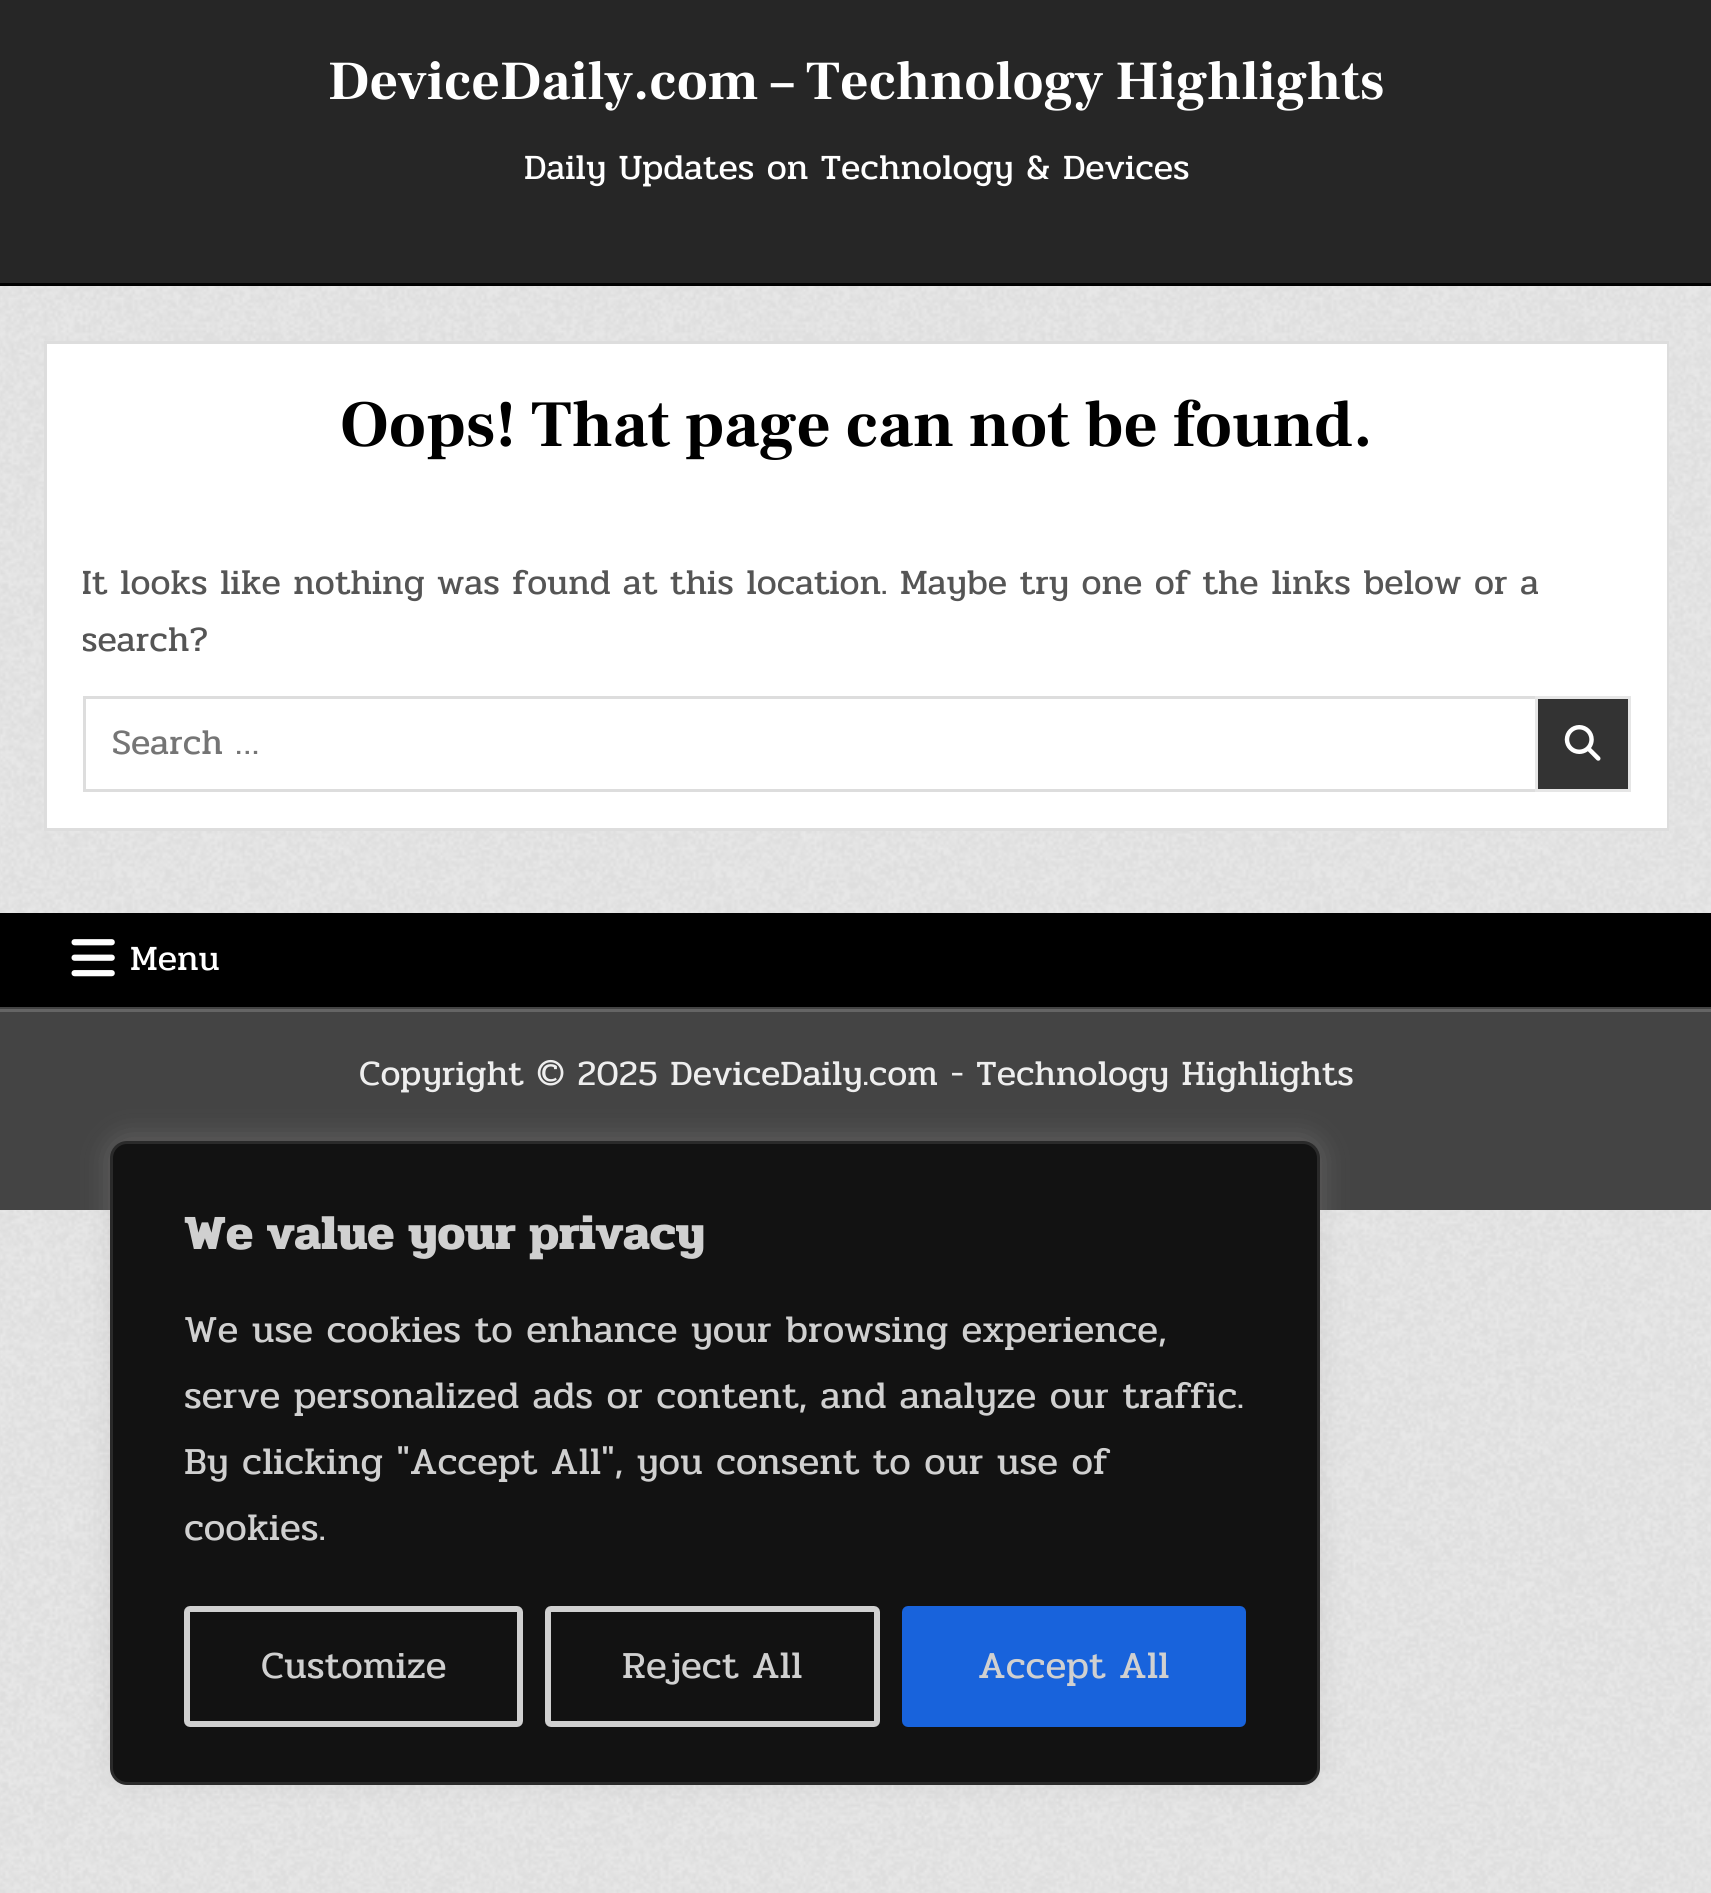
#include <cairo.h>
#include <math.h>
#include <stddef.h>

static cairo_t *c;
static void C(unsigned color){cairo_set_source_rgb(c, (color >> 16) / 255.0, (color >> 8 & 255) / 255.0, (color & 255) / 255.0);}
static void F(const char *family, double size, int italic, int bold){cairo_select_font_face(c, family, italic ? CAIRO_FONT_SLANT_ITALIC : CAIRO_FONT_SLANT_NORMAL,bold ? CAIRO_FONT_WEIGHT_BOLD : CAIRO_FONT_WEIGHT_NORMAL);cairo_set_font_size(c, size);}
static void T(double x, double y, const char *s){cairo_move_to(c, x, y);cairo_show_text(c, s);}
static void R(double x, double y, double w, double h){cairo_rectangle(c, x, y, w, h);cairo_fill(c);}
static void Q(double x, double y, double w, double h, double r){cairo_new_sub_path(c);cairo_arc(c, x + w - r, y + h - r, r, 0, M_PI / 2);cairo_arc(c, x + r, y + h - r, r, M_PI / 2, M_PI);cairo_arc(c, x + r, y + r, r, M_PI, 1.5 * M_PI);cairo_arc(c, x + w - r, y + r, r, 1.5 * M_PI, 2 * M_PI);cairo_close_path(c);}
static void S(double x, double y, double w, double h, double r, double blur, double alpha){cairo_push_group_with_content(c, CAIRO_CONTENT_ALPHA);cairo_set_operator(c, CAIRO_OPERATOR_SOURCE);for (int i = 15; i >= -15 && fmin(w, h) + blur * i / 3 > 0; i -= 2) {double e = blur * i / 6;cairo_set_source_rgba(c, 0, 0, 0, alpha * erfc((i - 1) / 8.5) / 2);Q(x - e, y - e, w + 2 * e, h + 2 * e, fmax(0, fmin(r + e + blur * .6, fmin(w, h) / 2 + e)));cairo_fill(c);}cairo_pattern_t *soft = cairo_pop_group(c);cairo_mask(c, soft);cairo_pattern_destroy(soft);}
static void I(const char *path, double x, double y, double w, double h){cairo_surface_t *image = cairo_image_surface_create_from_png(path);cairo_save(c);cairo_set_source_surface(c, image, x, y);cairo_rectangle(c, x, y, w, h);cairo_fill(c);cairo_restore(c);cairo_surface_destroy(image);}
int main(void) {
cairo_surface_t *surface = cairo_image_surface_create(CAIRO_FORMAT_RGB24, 1711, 1893);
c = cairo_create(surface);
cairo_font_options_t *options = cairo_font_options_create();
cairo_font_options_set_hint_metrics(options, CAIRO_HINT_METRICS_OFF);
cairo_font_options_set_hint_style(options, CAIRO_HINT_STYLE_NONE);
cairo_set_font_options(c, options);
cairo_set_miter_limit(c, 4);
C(0xffffff);
cairo_paint(c);
I("1.png",0,286,1711,1607);
C(0x262626);
R(0,0,1711,283);
C(0x000000);
R(0,283,1711,3);
F("Frank Ruhl Libre",55,0,1);
C(0xffffff);
T(328,99,"DeviceDaily.com – Technology Highlights");
F("Pridi",35.75,0,0);
T(524,179,"Daily Updates on Technology & Devices");
R(50,347,1614,478);
cairo_rectangle(c,45.5,342.5,1622,487);
C(0xdddddd);
cairo_set_line_width(c,3);
cairo_stroke(c);
cairo_rectangle(c,48.5,345.5,1617,481);
C(0xffffff);
cairo_stroke(c);
F("Frank Ruhl Libre",66,0,1);
C(0x000000);
T(340,446,"Oops! That page can not be found.");
cairo_save(c);
cairo_rectangle(c,83,556,1548,236);
cairo_clip(c);
F("Pridi",35.75,0,0);
C(0x555555);
T(81,594,"It looks like nothing was found at this location. Maybe try one of the links below or a");
T(81,651,"search?");
cairo_restore(c);
cairo_rectangle(c,84.5,697.5,1545,93);
C(0xdddddd);
cairo_stroke(c);
cairo_save(c);
cairo_rectangle(c,113,715,1477,55);
cairo_clip(c);
F("Pridi",35.75,0,0);
C(0x757575);
T(112,754,"Search …");
cairo_restore(c);
C(0x333333);
cairo_rectangle(c,1536.5,697.5,93,93);
cairo_fill_preserve(c);
C(0xe6e6e6);
cairo_stroke(c);
I("2.png",1564,725,37,36);
C(0x000000);
R(0,913,1711,94);
C(0x444444);
R(0,1007,1711,2);
I("3.png",71,939,44,38);
F("Pridi",35.75,0,0);
C(0xffffff);
T(130,970,"Menu");
C(0x444444);
R(0,1012,1711,198);
C(0x656565);
R(0,1009,1711,3);
C(0xeeeeee);
T(359,1085,"Copyright © 2025 DeviceDaily.com - Technology Highlights");
C(0xacabab);
S(110,1139,1210,643,17,14,.3);
C(0x121212);
Q(111.5,1142.5,1207,641,15.5);
cairo_fill_preserve(c);
C(0x2a2a2a);
cairo_stroke(c);
F("Pridi",49.5,0,1);
C(0xd0d0d0);
T(184,1249,"We value your privacy");
F("Pridi",38.5,0,0);
T(184,1342,"We use cookies to enhance your browsing experience,");
T(184,1408,"serve personalized ads or content, and analyze our traffic.");
T(184,1474,"By clicking \"Accept All\", you consent to our use of");
T(184,1540,"cookies.");
Q(187,1609,333,115,3);
cairo_set_line_width(c,6);
cairo_stroke(c);
T(261,1678,"Customize");
Q(548,1609,329,115,3);
cairo_stroke(c);
T(622,1678,"Reject All");
C(0x1863dc);
Q(905,1609,338,115,3);
cairo_fill_preserve(c);
cairo_stroke(c);
C(0xd0d0d0);
T(978,1678,"Accept All");
cairo_surface_write_to_png(surface, "o.png");
cairo_font_options_destroy(options);
cairo_destroy(c);
cairo_surface_destroy(surface);
return 0;
}
